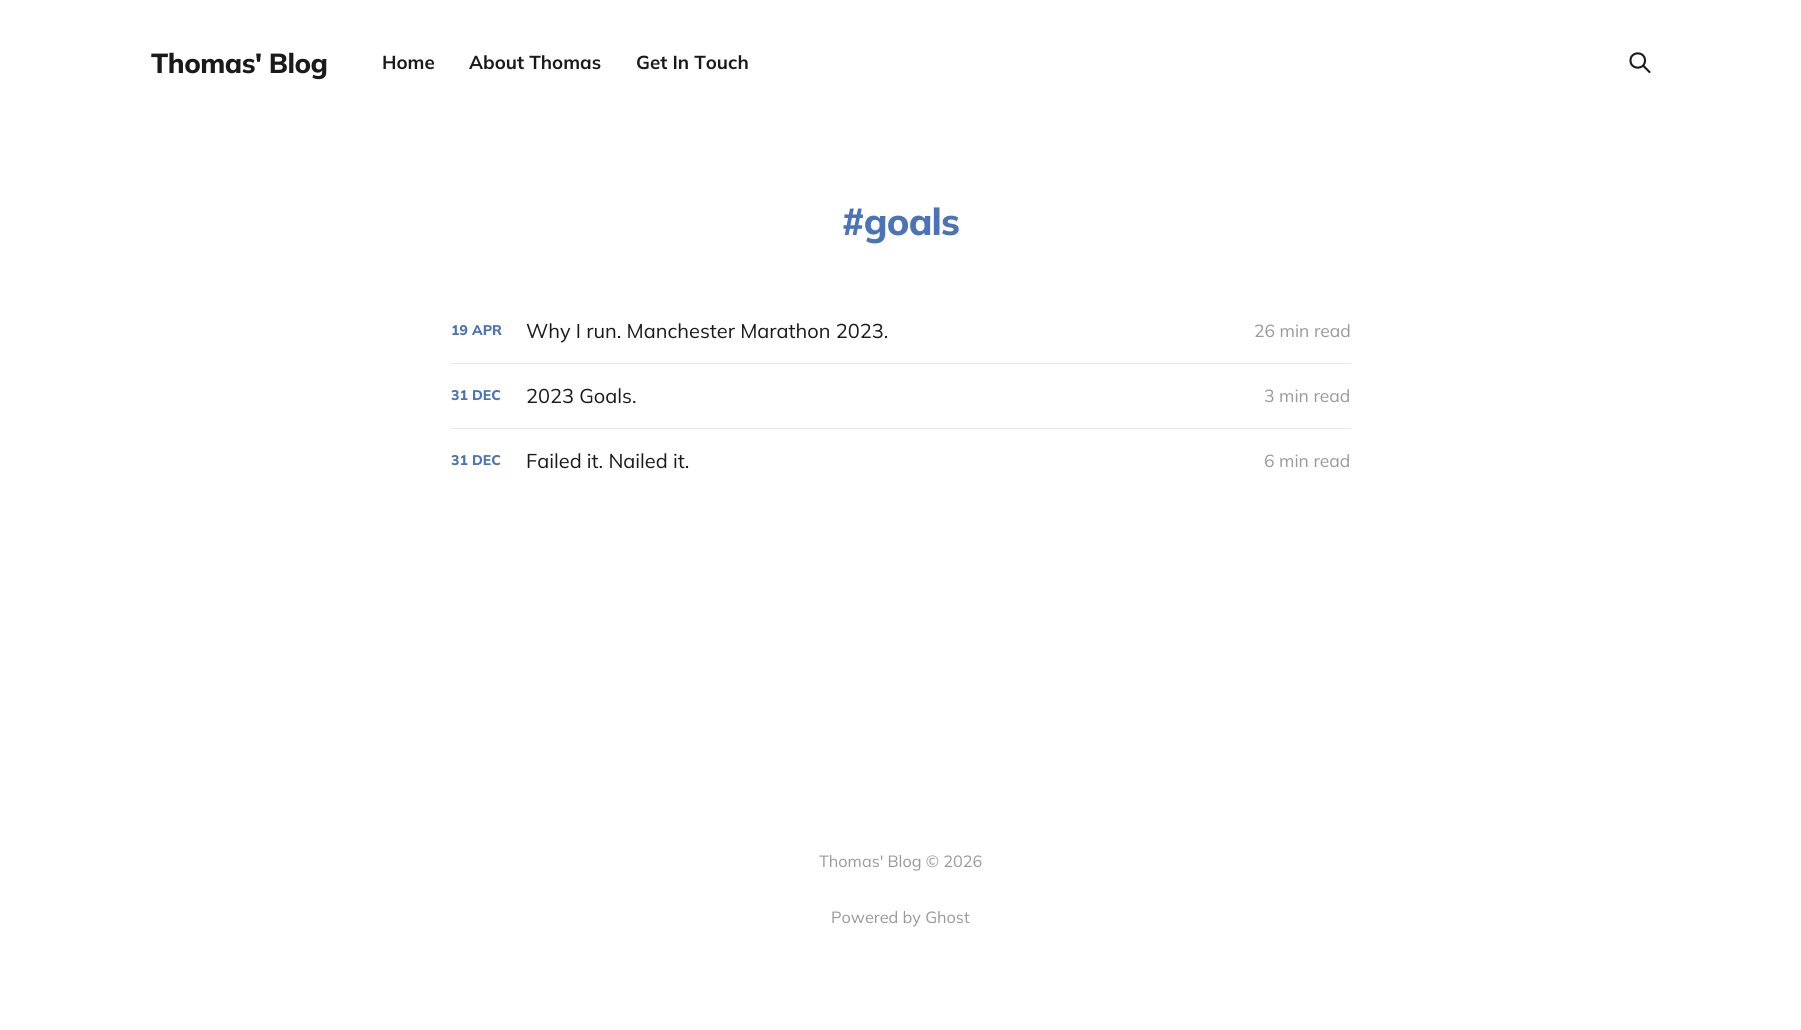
#include <cairo.h>
#include <math.h>
#include <stddef.h>

static cairo_t *c;
static void C(unsigned color){cairo_set_source_rgb(c, (color >> 16) / 255.0, (color >> 8 & 255) / 255.0, (color & 255) / 255.0);}
static void F(const char *family, double size, int italic, int bold){cairo_select_font_face(c, family, italic ? CAIRO_FONT_SLANT_ITALIC : CAIRO_FONT_SLANT_NORMAL,bold ? CAIRO_FONT_WEIGHT_BOLD : CAIRO_FONT_WEIGHT_NORMAL);cairo_set_font_size(c, size);}
static void T(double x, double y, const char *s){cairo_move_to(c, x, y);cairo_show_text(c, s);}
static void L(double x, double y, const char *s, double letter, double word){cairo_move_to(c, x, y);while (*s) {char ch[5] = {0};int n = 0;do ch[n++] = *s++; while ((*s & 0xC0) == 0x80);cairo_show_text(c, ch);cairo_rel_move_to(c, letter + word * (*ch == ' '), 0);}}
static void R(double x, double y, double w, double h){cairo_rectangle(c, x, y, w, h);cairo_fill(c);}
int main(void) {
cairo_surface_t *surface = cairo_image_surface_create(CAIRO_FORMAT_RGB24, 1801, 1030);
c = cairo_create(surface);
cairo_font_options_t *options = cairo_font_options_create();
cairo_font_options_set_hint_metrics(options, CAIRO_HINT_METRICS_OFF);
cairo_font_options_set_hint_style(options, CAIRO_HINT_STYLE_NONE);
cairo_set_font_options(c, options);
cairo_set_miter_limit(c, 4);
C(0xffffff);
cairo_paint(c);
F("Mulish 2 ExtraLight",27.5,0,0);
C(0x1a1a1a);
L(151,73,"Thomas' Blog",-.5,0);
F("Mulish ExtraLight",18.75,0,0);
T(382,69,"Home");
T(469,69,"About Thomas");
T(636,69,"Get In Touch");
cairo_new_path(c);
cairo_move_to(c,1649.5,72);
cairo_line_to(c,1643,65.5);
cairo_move_to(c,1645,60.5);
cairo_curve_to(c,1645,70,1630.5,70,1630.5,60.5);
cairo_curve_to(c,1630.5,51,1645,51,1645,60.5);
cairo_close_path(c);
cairo_set_line_width(c,2.1);
cairo_set_line_cap(c,CAIRO_LINE_CAP_ROUND);
cairo_set_line_join(c,CAIRO_LINE_JOIN_ROUND);
cairo_stroke(c);
F("Mulish 2 ExtraLight",37.5,0,0);
C(0x4b73b5);
L(842,235,"#goals",-.75,0);
F("Mulish 2 ExtraLight",14,0,0);
T(451,335,"19");
T(472,335,"APR");
F("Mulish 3 ExtraLight",20,0,0);
C(0x1a1a1a);
T(526,338,"Why I run. Manchester Marathon 2023.");
F("Mulish 3 ExtraLight",17.5,0,0);
C(0x999999);
T(1254,337,"26 min read");
C(0xe6e6e6);
R(451,363,900,1);
F("Mulish 2 ExtraLight",14,0,0);
C(0x4b73b5);
T(451,400,"31");
T(472,400,"DEC");
F("Mulish 3 ExtraLight",20,0,0);
C(0x1a1a1a);
T(526,403,"2023 Goals.");
F("Mulish 3 ExtraLight",17.5,0,0);
C(0x999999);
T(1264,402,"3 min read");
C(0xe6e6e6);
R(451,428,900,1);
F("Mulish 2 ExtraLight",14,0,0);
C(0x4b73b5);
T(451,465,"31");
T(472,465,"DEC");
F("Mulish 3 ExtraLight",20,0,0);
C(0x1a1a1a);
T(526,468,"Failed it. Nailed it.");
F("Mulish 3 ExtraLight",17.5,0,0);
C(0x999999);
T(1264,467,"6 min read");
F("Mulish 3 ExtraLight",16.25,0,0);
T(819,867,"Thomas' Blog © 2026");
T(831,923,"Powered by Ghost");
cairo_surface_write_to_png(surface, "o.png");
cairo_font_options_destroy(options);
cairo_destroy(c);
cairo_surface_destroy(surface);
return 0;
}
